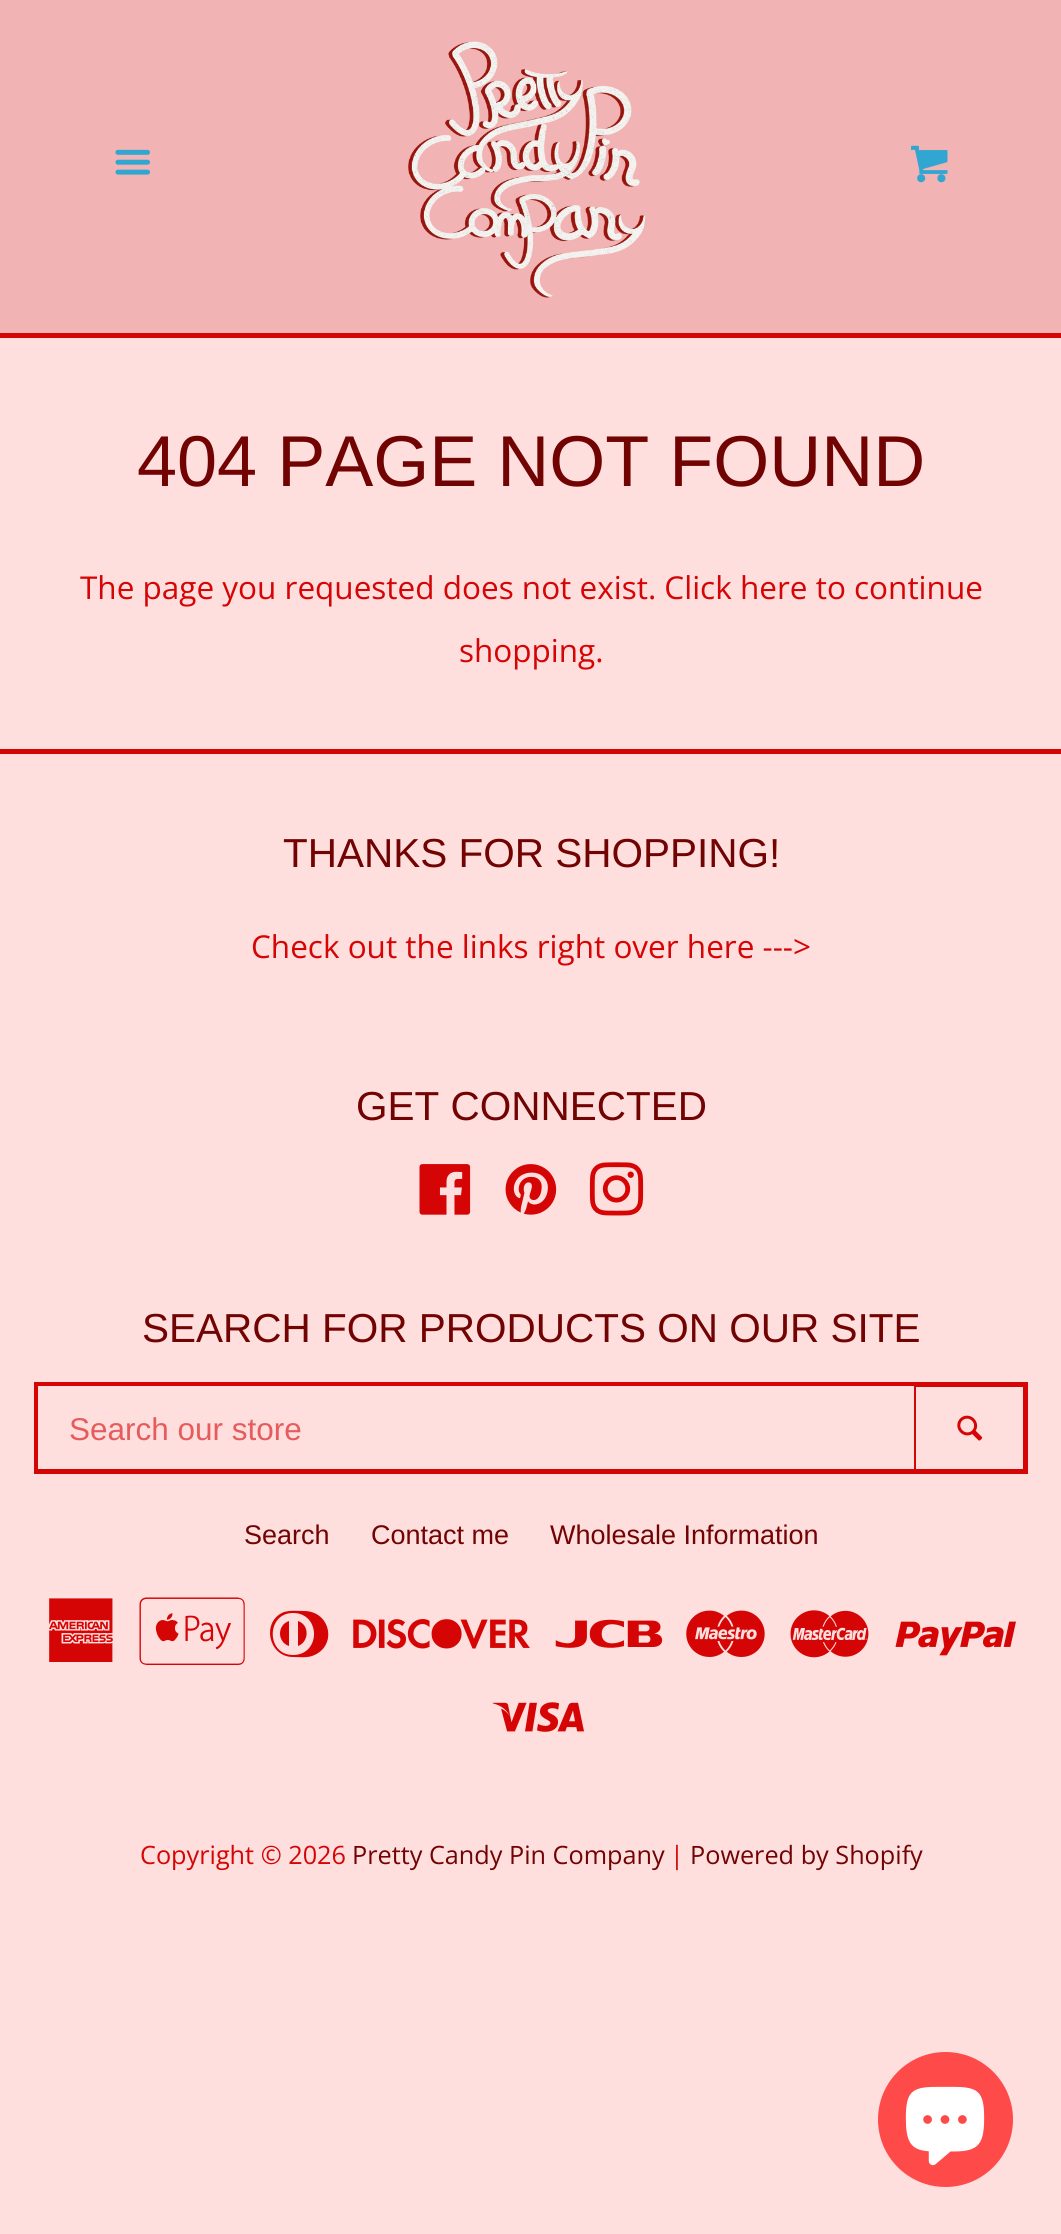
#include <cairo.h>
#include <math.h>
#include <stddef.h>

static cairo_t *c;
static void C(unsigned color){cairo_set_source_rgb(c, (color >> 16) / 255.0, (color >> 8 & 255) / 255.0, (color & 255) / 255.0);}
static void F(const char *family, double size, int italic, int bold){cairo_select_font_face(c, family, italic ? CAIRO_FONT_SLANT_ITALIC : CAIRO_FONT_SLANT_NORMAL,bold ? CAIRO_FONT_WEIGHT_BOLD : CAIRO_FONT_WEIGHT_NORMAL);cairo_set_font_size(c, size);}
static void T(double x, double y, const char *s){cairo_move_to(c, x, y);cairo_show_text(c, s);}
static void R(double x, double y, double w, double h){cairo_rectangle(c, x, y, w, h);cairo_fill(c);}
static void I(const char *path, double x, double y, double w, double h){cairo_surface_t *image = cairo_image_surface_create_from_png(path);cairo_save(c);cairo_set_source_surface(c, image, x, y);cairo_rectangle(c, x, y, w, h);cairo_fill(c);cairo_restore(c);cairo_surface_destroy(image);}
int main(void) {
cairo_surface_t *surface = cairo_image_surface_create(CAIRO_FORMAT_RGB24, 1061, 2234);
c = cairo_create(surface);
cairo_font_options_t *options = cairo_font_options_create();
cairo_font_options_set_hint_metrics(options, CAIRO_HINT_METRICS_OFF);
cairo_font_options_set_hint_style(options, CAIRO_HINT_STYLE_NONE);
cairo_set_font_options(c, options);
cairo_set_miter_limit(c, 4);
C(0xf1b3b3);
cairo_paint(c);
C(0xd60505);
R(0,333,1061,5);
I("1.png",115,149,35,26);
I("2.png",408,41,238,257);
I("3.png",911,145,37,38);
C(0xffdede);
R(0,338,1061,1896);
F("Liberation Sans",72,0,0);
C(0x720303);
T(137,486,"404 PAGE NOT FOUND");
F("Open Sans",31.5,0,0);
C(0xd60505);
T(80,599,"The page you requested does not exist. Click here to continue");
T(459,662,"shopping.");
R(0,749,1061,5);
F("Liberation Sans",40.5,0,0);
C(0x720303);
T(283,867,"THANKS FOR SHOPPING!");
F("Open Sans",31.5,0,0);
C(0xd60505);
T(251,958,"Check out the links right over here --->");
F("Liberation Sans",40.5,0,0);
C(0x720303);
T(356,1120,"GET CONNECTED");
I("4.png",419,1164,52,51);
I("5.png",505,1164,52,51);
I("6.png",589,1162,55,54);
T(142,1342,"SEARCH FOR PRODUCTS ON OUR SITE");
cairo_rectangle(c,36.5,1384.5,989,87);
C(0xd60505);
cairo_set_line_width(c,5);
cairo_stroke(c);
C(0xffdede);
R(38,1386,876,83);
C(0xd60505);
R(914,1386,2,83);
F("Liberation Sans",31.5,0,0);
C(0xe65c5c);
T(69,1440,"Search our store");
I("7.png",957,1415,26,26);
F("Liberation Sans",27,0,0);
C(0x720303);
T(244,1544,"Search");
T(371,1544,"Contact me");
T(550,1544,"Wholesale Information");
I("8.png",49,1598,64,64);
I("9.png",139,1597,106,68);
C(0xd60505);
cairo_new_path(c);
cairo_move_to(c,304,1611);
cairo_curve_to(c,331,1611,338,1647,312,1656);
cairo_curve_to(c,306,1658,299,1657,293,1657);
cairo_curve_to(c,268,1657,261,1621,284,1612);
cairo_curve_to(c,291,1610,298,1611,304,1611);
cairo_close_path(c);
cairo_move_to(c,293,1655);
cairo_curve_to(c,321,1655,321,1613,293,1613);
cairo_curve_to(c,266,1613,266,1655,293,1655);
cairo_close_path(c);
cairo_move_to(c,289,1646);
cairo_curve_to(c,277,1642,277,1625,289,1621);
cairo_close_path(c);
cairo_move_to(c,298,1621);
cairo_curve_to(c,310,1625,309,1642,298,1646);
cairo_close_path(c);
cairo_fill(c);
I("10.png",353,1619,177,30);
I("11.png",555,1619,108,29);
I("12.png",686,1610,79,47);
I("13.png",790,1610,79,48);
I("14.png",895,1621,121,35);
I("15.png",492,1702,92,30);
F("Open Sans",25.25,0,0);
T(140,1864,"Copyright © 2026");
C(0x720303);
T(352,1864,"Pretty Candy Pin Company");
C(0xd60505);
T(670,1864,"|");
C(0x720303);
T(690,1864,"Powered by Shopify");
C(0xff4a4a);
cairo_new_path(c);
cairo_arc(c,945.5,2119.5,67.5,0,2 * M_PI);
cairo_fill(c);
I("16.png",905,2086,80,80);
cairo_surface_write_to_png(surface, "o.png");
cairo_font_options_destroy(options);
cairo_destroy(c);
cairo_surface_destroy(surface);
return 0;
}
